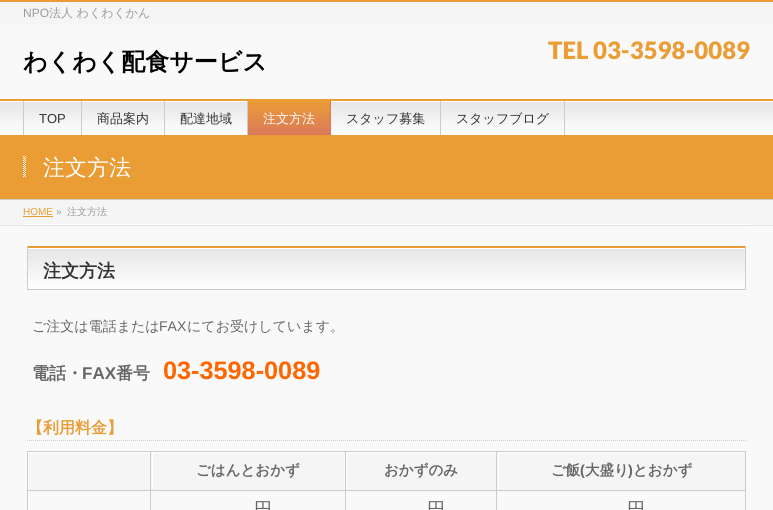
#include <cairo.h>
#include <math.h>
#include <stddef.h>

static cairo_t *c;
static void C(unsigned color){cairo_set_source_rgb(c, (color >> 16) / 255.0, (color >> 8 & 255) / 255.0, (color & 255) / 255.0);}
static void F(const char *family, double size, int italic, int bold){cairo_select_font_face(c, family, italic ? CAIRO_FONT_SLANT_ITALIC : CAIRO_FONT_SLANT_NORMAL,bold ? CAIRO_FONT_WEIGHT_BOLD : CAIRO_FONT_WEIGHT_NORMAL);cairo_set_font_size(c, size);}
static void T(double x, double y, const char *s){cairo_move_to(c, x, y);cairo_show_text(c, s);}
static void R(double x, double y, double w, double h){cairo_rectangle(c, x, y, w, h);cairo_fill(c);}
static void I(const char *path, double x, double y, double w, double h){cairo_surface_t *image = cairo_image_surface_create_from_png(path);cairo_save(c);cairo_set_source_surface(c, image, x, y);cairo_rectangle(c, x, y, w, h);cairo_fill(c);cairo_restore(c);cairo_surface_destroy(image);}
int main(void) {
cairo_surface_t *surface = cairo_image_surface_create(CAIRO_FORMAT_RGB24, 773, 510);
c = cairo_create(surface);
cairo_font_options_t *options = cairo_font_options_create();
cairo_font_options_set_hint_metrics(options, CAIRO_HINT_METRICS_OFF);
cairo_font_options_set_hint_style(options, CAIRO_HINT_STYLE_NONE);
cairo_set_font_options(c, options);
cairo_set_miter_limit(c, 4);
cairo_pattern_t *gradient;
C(0xf9f9f9);
cairo_paint(c);
C(0xf5f5f5);
R(0,2,773,22);
C(0xea9c35);
R(0,0,773,2);
F("Liberation Sans",12,0,0);
C(0x999999);
T(23,17,"NPO");
F("WenQuanYi Zen Hei Medium",12,0,0);
T(49,17,"法人 わくわくかん");
F("WenQuanYi Zen Hei",24,0,1);
C(0x000000);
T(23,70,"わくわく配食サービス");
F("Lato Black",24,0,0);
C(0xea9c35);
T(548,59,"TEL 03-3598-0089");
gradient = cairo_pattern_create_linear(0,101,0,135);
cairo_pattern_add_color_stop_rgba(gradient,0,0.898,0.898,0.898,1);
cairo_pattern_add_color_stop_rgba(gradient,1,1,1,1,1);
cairo_set_source(c,gradient);
cairo_pattern_destroy(gradient);
R(0,102,773,33);
C(0xffffff);
R(0,101,773,1);
C(0xea9c35);
R(0,99,773,2);
C(0xcccccc);
R(23,101,1,34);
R(81,101,1,34);
F("Liberation Sans",13,0,0);
C(0x333333);
T(39,123,"TOP");
C(0xcccccc);
R(164,101,1,34);
F("WenQuanYi Zen Hei Medium",13,0,0);
C(0x333333);
T(97,123,"商品案内");
C(0xcccccc);
R(247,101,1,34);
C(0x333333);
T(180,123,"配達地域");
gradient = cairo_pattern_create_linear(289,101,289,135);
cairo_pattern_add_color_stop_rgba(gradient,0,0.918,0.612,0.208,1);
cairo_pattern_add_color_stop_rgba(gradient,1,0.859,0.475,0.361,1);
cairo_set_source(c,gradient);
cairo_pattern_destroy(gradient);
R(248,101,82,34);
C(0xdb795c);
R(330,101,1,34);
C(0xffffff);
T(263,123,"注文方法");
C(0xcccccc);
R(440,101,1,34);
C(0x333333);
T(346,123,"スタッフ募集");
C(0xcccccc);
R(564,101,1,34);
C(0x333333);
T(456,123,"スタッフブログ");
C(0xea9c35);
R(0,135,773,64);
C(0xcccccc);
R(0,199,773,1);
I("1.png",23,156,3,21);
F("WenQuanYi Zen Hei Medium",22,0,0);
C(0xffffff);
T(43,175,"注文方法");
C(0xf5f5f5);
R(0,200,773,25);
C(0xe5e5e5);
R(0,225,773,1);
C(0xffffff);
R(23,224,727,1);
F("Liberation Sans",10,0,0);
C(0xea9c35);
T(23,215,"HOME");
R(23,216,30,1);
C(0x999999);
T(56,215,"»");
F("WenQuanYi Zen Hei Medium",10,0,0);
T(67,215,"注文方法");
gradient = cairo_pattern_create_linear(28,248,28,289);
cairo_pattern_add_color_stop_rgba(gradient,0,0.898,0.898,0.898,1);
cairo_pattern_add_color_stop_rgba(gradient,1,1,1,1,1);
cairo_set_source(c,gradient);
cairo_pattern_destroy(gradient);
R(28,249,717,40);
C(0xffffff);
R(28,248,717,1);
C(0xea9c35);
cairo_new_path(c);
cairo_move_to(c,27,246);
cairo_line_to(c,746,246);
cairo_line_to(c,745,248);
cairo_line_to(c,28,248);
cairo_close_path(c);
cairo_fill(c);
C(0xcccccc);
cairo_new_path(c);
cairo_move_to(c,746,246);
cairo_line_to(c,746,290);
cairo_line_to(c,745,289);
cairo_line_to(c,745,248);
cairo_close_path(c);
cairo_fill(c);
R(27,289,719,1);
cairo_new_path(c);
cairo_move_to(c,27,290);
cairo_line_to(c,27,246);
cairo_line_to(c,28,248);
cairo_line_to(c,28,289);
cairo_close_path(c);
cairo_fill(c);
F("WenQuanYi Zen Hei",18,0,1);
C(0x333333);
T(43,277,"注文方法");
F("WenQuanYi Zen Hei Medium",14,0,0);
C(0x666666);
T(32,331,"ご注文は電話または");
F("Liberation Sans",14,0,0);
T(159,331,"FAX");
F("WenQuanYi Zen Hei Medium",14,0,0);
T(187,331,"にてお受けしています。");
F("WenQuanYi Zen Hei",17,0,1);
T(32,379,"電話・");
F("Liberation Sans",17,0,1);
T(82,379,"FAX");
F("WenQuanYi Zen Hei",17,0,1);
T(116,379,"番号");
F("Liberation Sans",25.25,0,1);
C(0xff6600);
T(163,379,"03-3598-0089");
cairo_new_path(c);
cairo_move_to(c,27,440.5);
cairo_line_to(c,746,440.5);
C(0xcccccc);
cairo_set_line_width(c,1);
cairo_set_dash(c,(double[]){1,1},2,0);
cairo_stroke(c);
F("WenQuanYi Zen Hei",16,0,1);
C(0xea9c35);
T(27,433,"【利用料金】");
C(0xcccccc);
R(151,451,595,1);
C(0xf5f5f5);
R(28,453,122,37);
cairo_save(c);
cairo_rectangle(c,28,452,122,37);
cairo_clip(c);
C(0xffffff);
cairo_set_fill_rule(c,CAIRO_FILL_RULE_EVEN_ODD);
cairo_new_path(c);
cairo_move_to(c,-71,353);
cairo_line_to(c,249,353);
cairo_line_to(c,249,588);
cairo_line_to(c,-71,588);
cairo_close_path(c);
cairo_move_to(c,29,453);
cairo_line_to(c,151,453);
cairo_line_to(c,151,490);
cairo_line_to(c,29,490);
cairo_close_path(c);
cairo_fill(c);
cairo_restore(c);
C(0xcccccc);
R(496,490,250,1);
R(496,490,1,20);
R(345,490,152,1);
R(345,490,1,20);
R(150,490,196,1);
R(150,490,1,20);
R(27,490,124,1);
R(150,451,1,40);
R(27,451,124,1);
R(27,490,1,20);
R(27,451,1,40);
C(0xf5f5f5);
R(151,452,194,38);
cairo_save(c);
cairo_rectangle(c,152,452,192,37);
cairo_clip(c);
C(0xffffff);
cairo_set_fill_rule(c,CAIRO_FILL_RULE_EVEN_ODD);
cairo_new_path(c);
cairo_move_to(c,53,353);
cairo_line_to(c,443,353);
cairo_line_to(c,443,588);
cairo_line_to(c,53,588);
cairo_close_path(c);
cairo_move_to(c,153,453);
cairo_line_to(c,345,453);
cairo_line_to(c,345,490);
cairo_line_to(c,153,490);
cairo_close_path(c);
cairo_fill(c);
cairo_restore(c);
F("WenQuanYi Zen Hei",14.5,0,1);
C(0x666666);
T(196,475,"ごはんとおかず");
C(0xf5f5f5);
R(346,453,150,37);
cairo_save(c);
cairo_rectangle(c,346,452,150,37);
cairo_clip(c);
C(0xffffff);
cairo_set_fill_rule(c,CAIRO_FILL_RULE_EVEN_ODD);
cairo_new_path(c);
cairo_move_to(c,247,353);
cairo_line_to(c,595,353);
cairo_line_to(c,595,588);
cairo_line_to(c,247,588);
cairo_close_path(c);
cairo_move_to(c,347,453);
cairo_line_to(c,497,453);
cairo_line_to(c,497,490);
cairo_line_to(c,347,490);
cairo_close_path(c);
cairo_fill(c);
cairo_restore(c);
C(0xcccccc);
R(345,451,1,40);
C(0x666666);
T(384,475,"おかずのみ");
C(0xf5f5f5);
R(497,452,248,38);
cairo_save(c);
cairo_rectangle(c,498,452,247,37);
cairo_clip(c);
C(0xffffff);
cairo_set_fill_rule(c,CAIRO_FILL_RULE_EVEN_ODD);
cairo_new_path(c);
cairo_move_to(c,399,353);
cairo_line_to(c,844,353);
cairo_line_to(c,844,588);
cairo_line_to(c,399,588);
cairo_close_path(c);
cairo_move_to(c,499,453);
cairo_line_to(c,746,453);
cairo_line_to(c,746,490);
cairo_line_to(c,499,490);
cairo_close_path(c);
cairo_fill(c);
cairo_restore(c);
C(0xcccccc);
R(496,451,1,40);
C(0x666666);
T(551,475,"ご飯");
F("Liberation Sans",14.5,0,1);
T(580,475,"(");
F("WenQuanYi Zen Hei",14.5,0,1);
T(585,475,"大盛り");
F("Liberation Sans",14.5,0,1);
T(628,475,")");
F("WenQuanYi Zen Hei",14.5,0,1);
T(633,475,"とおかず");
F("WenQuanYi Zen Hei Medium",18,0,0);
T(254,515,"円");
T(427,515,"円");
C(0xcccccc);
R(745,451,1,59);
C(0x666666);
T(627,515,"円");
cairo_surface_write_to_png(surface, "o.png");
cairo_font_options_destroy(options);
cairo_destroy(c);
cairo_surface_destroy(surface);
return 0;
}
